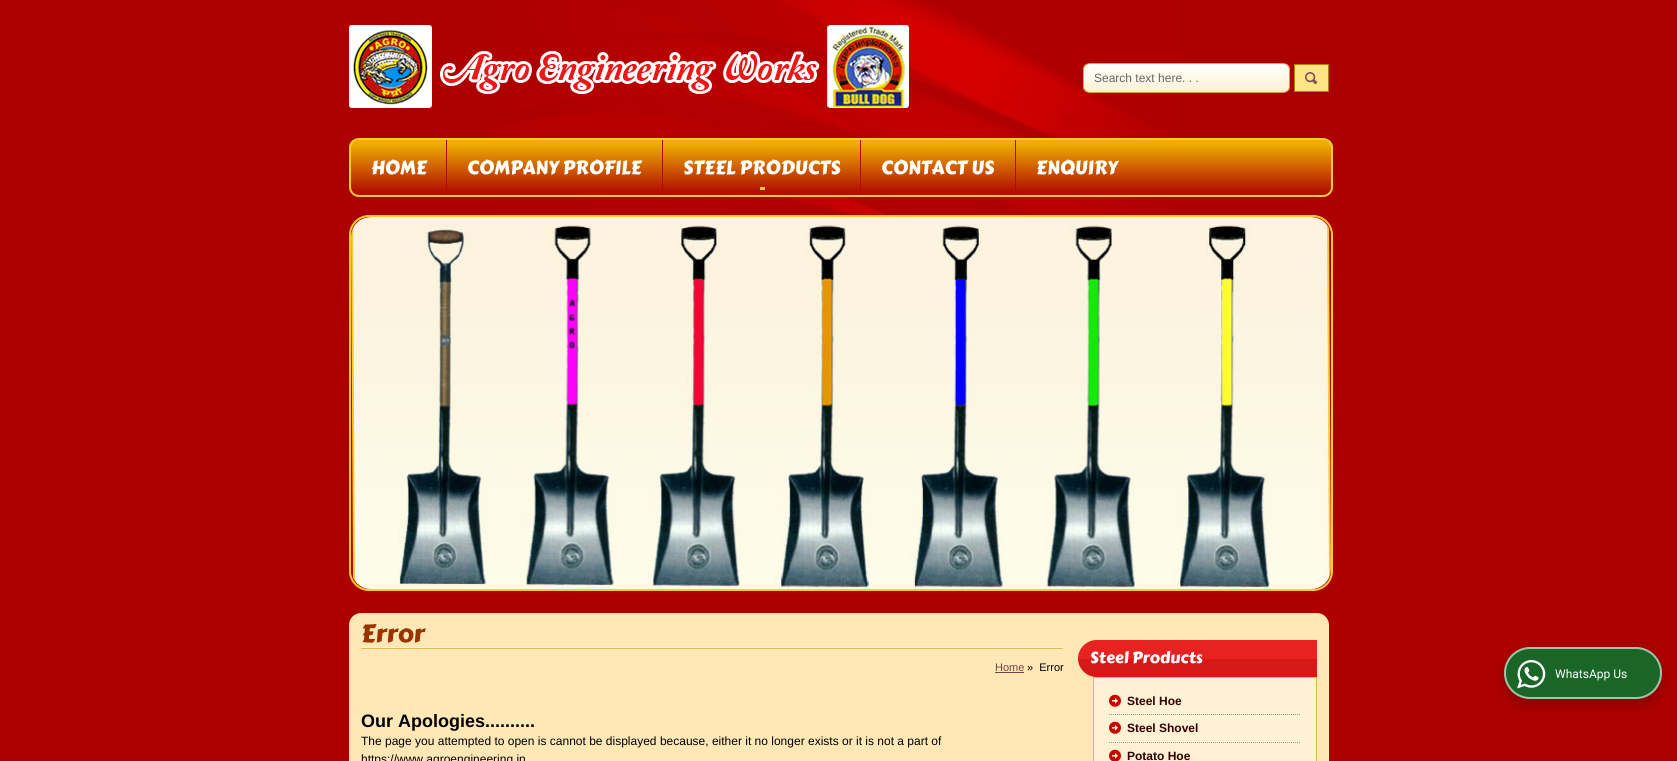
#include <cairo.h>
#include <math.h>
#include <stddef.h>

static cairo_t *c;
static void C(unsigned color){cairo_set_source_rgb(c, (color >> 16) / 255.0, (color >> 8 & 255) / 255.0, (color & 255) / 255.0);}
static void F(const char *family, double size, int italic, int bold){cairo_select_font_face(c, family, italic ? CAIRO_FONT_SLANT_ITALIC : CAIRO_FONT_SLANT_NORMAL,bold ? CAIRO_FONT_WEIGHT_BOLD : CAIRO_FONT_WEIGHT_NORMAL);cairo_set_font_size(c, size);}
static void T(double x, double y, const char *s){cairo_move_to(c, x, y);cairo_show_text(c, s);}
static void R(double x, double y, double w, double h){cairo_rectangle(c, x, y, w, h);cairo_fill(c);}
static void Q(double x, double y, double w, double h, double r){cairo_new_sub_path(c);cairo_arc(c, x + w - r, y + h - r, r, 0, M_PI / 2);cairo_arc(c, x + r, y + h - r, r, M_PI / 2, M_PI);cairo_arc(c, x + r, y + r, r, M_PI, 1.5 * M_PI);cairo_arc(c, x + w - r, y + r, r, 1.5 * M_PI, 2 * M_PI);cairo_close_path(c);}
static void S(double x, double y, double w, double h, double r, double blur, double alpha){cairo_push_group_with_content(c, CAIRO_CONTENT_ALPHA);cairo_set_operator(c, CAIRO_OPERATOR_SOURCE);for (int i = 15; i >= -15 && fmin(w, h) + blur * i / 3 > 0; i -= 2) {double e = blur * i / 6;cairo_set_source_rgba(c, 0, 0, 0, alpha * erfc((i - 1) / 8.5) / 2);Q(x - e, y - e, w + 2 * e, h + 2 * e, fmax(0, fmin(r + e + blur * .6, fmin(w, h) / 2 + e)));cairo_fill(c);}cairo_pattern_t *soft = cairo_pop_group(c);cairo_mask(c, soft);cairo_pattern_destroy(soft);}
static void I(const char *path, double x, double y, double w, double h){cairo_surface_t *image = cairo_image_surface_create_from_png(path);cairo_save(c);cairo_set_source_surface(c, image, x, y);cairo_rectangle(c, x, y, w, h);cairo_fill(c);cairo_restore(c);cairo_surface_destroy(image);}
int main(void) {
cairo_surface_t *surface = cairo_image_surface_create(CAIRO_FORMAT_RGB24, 1677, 761);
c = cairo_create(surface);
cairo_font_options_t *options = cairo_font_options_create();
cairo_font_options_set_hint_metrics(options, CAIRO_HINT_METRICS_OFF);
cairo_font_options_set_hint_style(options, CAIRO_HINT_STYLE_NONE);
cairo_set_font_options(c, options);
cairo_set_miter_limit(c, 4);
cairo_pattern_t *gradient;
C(0xac0000);
cairo_paint(c);
I("1.png",489,0,693,215);
I("2.png",349,25,560,83);
cairo_save(c);
Q(1083,63,207,30,7);
cairo_clip(c);
gradient = cairo_pattern_create_linear(1187,64,1187,92);
cairo_pattern_add_color_stop_rgba(gradient,0,1,1,1,1);
cairo_pattern_add_color_stop_rgba(gradient,1,1,0.945,0.827,1);
cairo_set_source(c,gradient);
cairo_pattern_destroy(gradient);
R(1083,64,207,28);
cairo_restore(c);
Q(1083.5,63.5,206,29,6.5);
C(0xcaa835);
cairo_set_line_width(c,1);
cairo_stroke(c);
F("Liberation Sans",12,0,0);
C(0x666666);
T(1094,82,"Search text here. . .");
C(0xffe486);
cairo_rectangle(c,1294.5,64.5,34,27);
cairo_fill_preserve(c);
C(0xaa8505);
cairo_stroke(c);
I("3.png",1305,72,13,12);
cairo_save(c);
Q(349,138,984,59,10);
cairo_clip(c);
gradient = cairo_pattern_create_linear(841,140,841,195);
cairo_pattern_add_color_stop_rgba(gradient,.07,0.929,0.682,0.012,1);
cairo_pattern_add_color_stop_rgba(gradient,.93,0.702,0.063,0,1);
cairo_set_source(c,gradient);
cairo_pattern_destroy(gradient);
R(349,140,984,55);
cairo_restore(c);
Q(350,139,982,57,9);
C(0xf5ca35);
cairo_set_line_width(c,2);
cairo_stroke(c);
F("Carter One",19,0,0);
C(0xffffff);
T(371,174,"HOME");
C(0xb20c00);
R(446,140,1,55);
C(0xffffff);
T(467,174,"COMPANY PROFILE");
C(0xb20c00);
R(662,140,1,55);
C(0xffffff);
T(683,174,"STEEL PRODUCTS");
C(0xf5ca35);
R(760,187,5,3);
C(0xb20c00);
R(860,140,1,55);
C(0xffffff);
T(881,174,"CONTACT US");
C(0xb20c00);
R(1015,140,1,55);
C(0xffffff);
T(1036,174,"ENQUIRY");
Q(350,216,982,374,19);
C(0xf5ca35);
cairo_stroke(c);
I("4.png",351,217,980,372);
C(0xffe8b6);
Q(349,613,980,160,12);
cairo_fill(c);
C(0xdfbe4f);
R(361,648,702,1);
C(0xfff3cc);
R(361,647,702,1);
F("Carter One",25,0,0);
C(0x993300);
T(361,642,"Error");
F("Liberation Sans",11,0,0);
C(0x714646);
T(995,671,"Home");
R(995,672,29,1);
C(0x000000);
T(1027,671,"»  Error");
F("Liberation Sans",18,0,1);
T(361,727,"Our Apologies..........");
F("Liberation Sans",12,0,0);
T(361,745,"The page you attempted to open is cannot be displayed because, either it no longer exists or it is not a part of");
T(361,763,"https://www.agroengineering.in");
cairo_save(c);
cairo_new_path(c);
cairo_move_to(c,1096.5,640);
cairo_line_to(c,1317,640);
cairo_line_to(c,1317,677);
cairo_line_to(c,1096.5,677);
cairo_curve_to(c,1086.5,677,1078,668.5,1078,658.5);
cairo_curve_to(c,1078,648.5,1086.5,640,1096.5,640);
cairo_close_path(c);
cairo_clip(c);
C(0xe82221);
cairo_new_path(c);
cairo_move_to(c,1096.5,640);
cairo_line_to(c,1317,640);
cairo_line_to(c,1317,659);
cairo_line_to(c,1078,659);
cairo_line_to(c,1078,658.5);
cairo_curve_to(c,1078,648.5,1086.5,640,1096.5,640);
cairo_close_path(c);
cairo_fill(c);
C(0xd61817);
R(1078,659,239,18);
cairo_restore(c);
F("Carter One",16,0,0);
C(0xffffff);
T(1090,663,"Steel Products");
C(0xfff1d3);
cairo_rectangle(c,1093.5,677.5,223,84);
cairo_fill_preserve(c);
C(0xdfbe4f);
cairo_set_line_width(c,1);
cairo_stroke(c);
cairo_new_path(c);
cairo_move_to(c,1109,714.5);
cairo_line_to(c,1301,714.5);
C(0xa39c85);
cairo_set_dash(c,(double[]){1,1},2,0);
cairo_stroke(c);
I("5.png",1109,694,12,13);
F("Liberation Sans",12,0,1);
C(0x330000);
T(1127,705,"Steel Hoe");
cairo_new_path(c);
cairo_move_to(c,1109,742.5);
cairo_line_to(c,1301,742.5);
C(0xa39c85);
cairo_stroke(c);
I("5.png",1109,721,12,13);
C(0x330000);
T(1127,732,"Steel Shovel");
I("6.png",1109,749,12,12);
T(1127,760,"Potato Hoe");
C(0x000000);
S(1502,651,162,56,28,4,.14);
C(0x196626);
Q(1504,647,158,52,26);
cairo_fill(c);
Q(1505,648,156,50,25);
cairo_set_source_rgba(c,1,1,1,0.6);
cairo_set_line_width(c,2);
cairo_set_dash(c,NULL,0,0);
cairo_stroke(c);
I("7.png",1517,660,29,29);
F("Roboto",12,0,0);
C(0xffffff);
T(1555,678,"WhatsApp Us");
cairo_surface_write_to_png(surface, "o.png");
cairo_font_options_destroy(options);
cairo_destroy(c);
cairo_surface_destroy(surface);
return 0;
}
